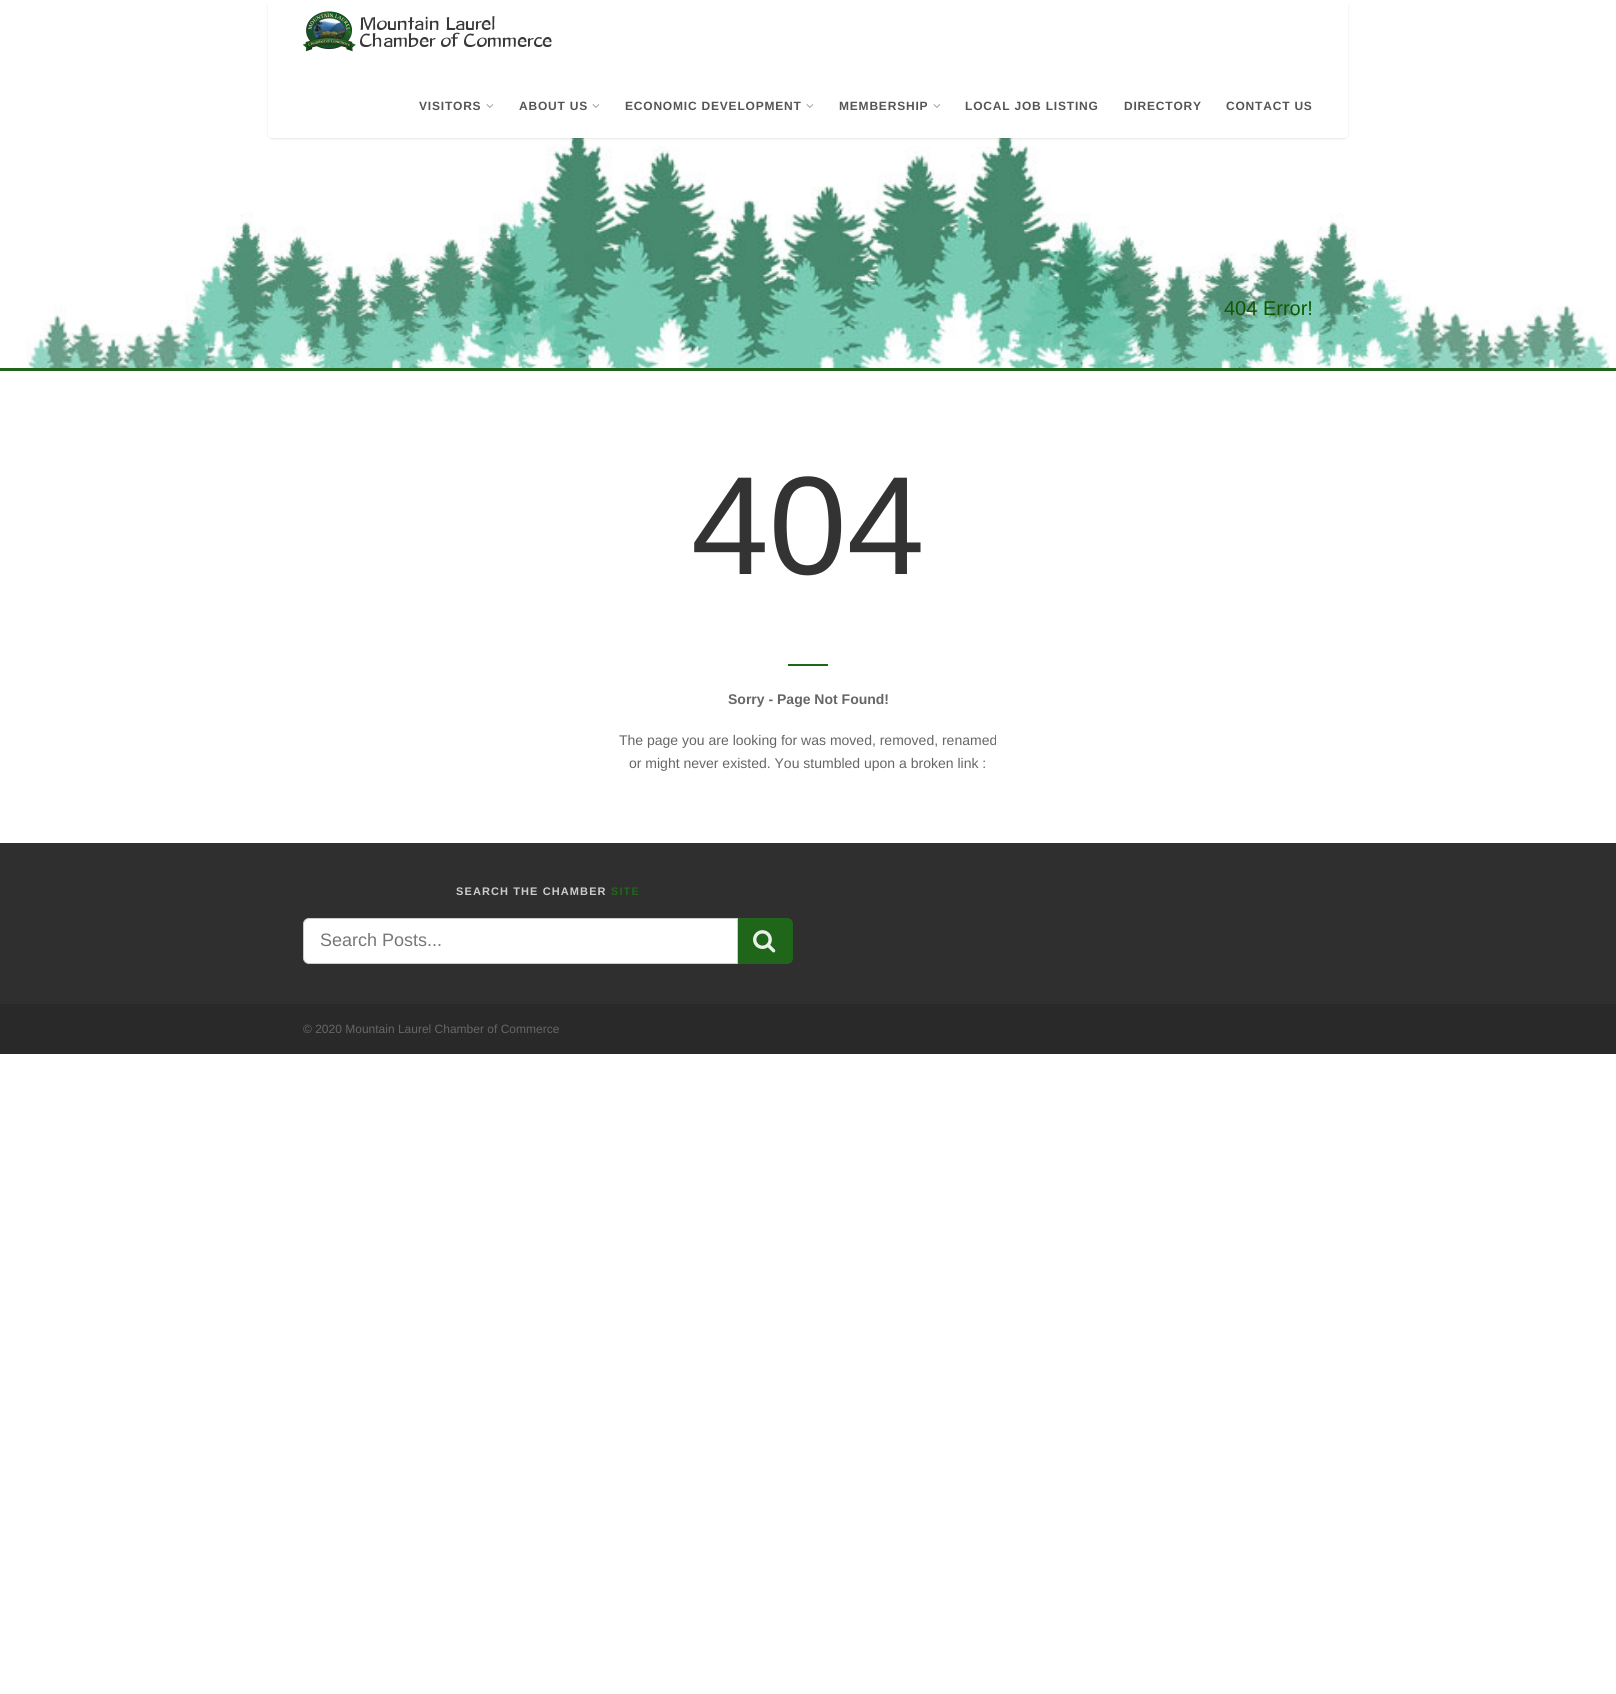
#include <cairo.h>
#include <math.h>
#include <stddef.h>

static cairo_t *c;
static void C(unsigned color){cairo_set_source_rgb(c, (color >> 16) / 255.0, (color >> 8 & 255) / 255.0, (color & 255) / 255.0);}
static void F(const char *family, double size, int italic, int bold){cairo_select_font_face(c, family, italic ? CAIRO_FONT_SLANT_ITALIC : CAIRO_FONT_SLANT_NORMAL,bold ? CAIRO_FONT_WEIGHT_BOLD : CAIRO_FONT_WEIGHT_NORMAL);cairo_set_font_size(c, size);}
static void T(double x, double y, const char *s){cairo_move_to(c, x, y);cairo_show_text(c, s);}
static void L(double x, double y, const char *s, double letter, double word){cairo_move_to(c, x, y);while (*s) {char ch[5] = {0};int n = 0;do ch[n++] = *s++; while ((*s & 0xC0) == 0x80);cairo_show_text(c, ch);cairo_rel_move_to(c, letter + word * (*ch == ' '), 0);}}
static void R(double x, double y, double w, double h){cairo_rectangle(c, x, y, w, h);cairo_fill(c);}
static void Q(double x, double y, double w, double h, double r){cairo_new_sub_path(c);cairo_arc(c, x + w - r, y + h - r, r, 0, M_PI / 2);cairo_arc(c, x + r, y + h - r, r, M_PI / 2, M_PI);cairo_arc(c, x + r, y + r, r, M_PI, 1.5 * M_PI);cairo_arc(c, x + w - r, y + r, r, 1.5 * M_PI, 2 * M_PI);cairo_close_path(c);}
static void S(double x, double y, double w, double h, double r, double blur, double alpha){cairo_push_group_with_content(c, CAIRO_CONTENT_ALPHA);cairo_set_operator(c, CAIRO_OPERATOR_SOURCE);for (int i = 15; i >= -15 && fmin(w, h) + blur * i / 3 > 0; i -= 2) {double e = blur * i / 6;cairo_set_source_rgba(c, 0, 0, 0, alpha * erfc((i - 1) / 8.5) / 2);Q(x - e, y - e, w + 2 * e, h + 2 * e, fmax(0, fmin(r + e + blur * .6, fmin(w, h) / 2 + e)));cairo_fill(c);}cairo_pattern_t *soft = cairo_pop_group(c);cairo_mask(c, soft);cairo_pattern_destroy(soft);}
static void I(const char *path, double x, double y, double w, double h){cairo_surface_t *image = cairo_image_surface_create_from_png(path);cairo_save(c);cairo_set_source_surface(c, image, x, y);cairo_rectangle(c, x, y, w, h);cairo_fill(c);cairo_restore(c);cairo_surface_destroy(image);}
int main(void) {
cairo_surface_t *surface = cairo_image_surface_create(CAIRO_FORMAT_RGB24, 1616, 1694);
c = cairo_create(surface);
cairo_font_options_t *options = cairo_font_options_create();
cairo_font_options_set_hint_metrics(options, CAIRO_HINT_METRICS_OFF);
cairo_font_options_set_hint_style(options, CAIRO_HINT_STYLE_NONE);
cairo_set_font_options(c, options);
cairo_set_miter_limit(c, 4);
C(0xffffff);
cairo_paint(c);
I("3.png",0,138,1616,230);
cairo_save(c);
cairo_set_fill_rule(c,CAIRO_FILL_RULE_EVEN_ODD);
cairo_new_path(c);
cairo_move_to(c,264,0);
cairo_line_to(c,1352,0);
cairo_line_to(c,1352,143);
cairo_line_to(c,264,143);
cairo_close_path(c);
cairo_move_to(c,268,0);
cairo_line_to(c,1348,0);
cairo_line_to(c,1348,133);
cairo_curve_to(c,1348,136,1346,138,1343,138);
cairo_line_to(c,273,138);
cairo_curve_to(c,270,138,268,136,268,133);
cairo_close_path(c);
cairo_clip(c);
C(0x000000);
S(268,1,1080,138,5,1,.1);
cairo_restore(c);
cairo_set_source_rgba(c,1,1,1,0.9);
cairo_new_path(c);
cairo_move_to(c,268,0);
cairo_line_to(c,1348,0);
cairo_line_to(c,1348,133);
cairo_curve_to(c,1348,136,1346,138,1343,138);
cairo_line_to(c,273,138);
cairo_curve_to(c,270,138,268,136,268,133);
cairo_close_path(c);
cairo_fill(c);
I("1.png",303,11,249,41);
F("Liberation Sans",12,0,1);
C(0x555555);
L(419,110,"VISITORS",.8,0);
I("2.png",486,104,8,4);
L(519,110,"ABOUT US",.8,0);
I("2.png",592,104,8,4);
L(625,110,"ECONOMIC DEVELOPMENT",.8,0);
I("2.png",806,104,8,4);
L(839,110,"MEMBERSHIP",.8,0);
I("2.png",933,104,8,4);
L(965,110,"LOCAL JOB LISTING",.8,0);
L(1124,110,"DIRECTORY",.8,0);
L(1226,110,"CONTACT US",.8,0);
F("Liberation Sans",20,0,0);
C(0x125600);
T(1224,315,"404 Error!");
C(0x1f661a);
R(0,368,1616,3);
F("Liberation Sans",140,0,0);
C(0x333333);
T(691,574,"404");
C(0x1f661a);
R(788,664,40,2);
F("Liberation Sans",14,0,1);
C(0x666666);
T(728,704,"Sorry - Page Not Found!");
F("Liberation Sans",14,0,0);
T(619,745,"The page you are looking for was moved, removed, renamed");
T(629,768,"or might never existed. You stumbled upon a broken link :");
C(0x2f2f2f);
R(0,843,1616,161);
F("Liberation Sans",11,0,1);
C(0xcccccc);
L(456,895,"SEARCH THE CHAMBER",1.1,0);
C(0x1f661a);
L(611,895,"SITE",1.1,0);
cairo_new_path(c);
cairo_move_to(c,737,918);
cairo_line_to(c,787,918);
cairo_curve_to(c,790.5,918,793,920.5,793,924);
cairo_line_to(c,793,958);
cairo_curve_to(c,793,961.5,790.5,964,787,964);
cairo_line_to(c,737,964);
cairo_close_path(c);
cairo_fill(c);
C(0xffffff);
cairo_new_path(c);
cairo_move_to(c,309,918.5);
cairo_line_to(c,737.5,918.5);
cairo_line_to(c,737.5,963.5);
cairo_line_to(c,309,963.5);
cairo_curve_to(c,306,963.5,303.5,961,303.5,958);
cairo_line_to(c,303.5,924);
cairo_curve_to(c,303.5,921,306,918.5,309,918.5);
cairo_close_path(c);
cairo_fill_preserve(c);
C(0xcccccc);
cairo_set_line_width(c,1);
cairo_stroke(c);
F("Liberation Sans",18,0,0);
C(0x777777);
T(320,946,"Search Posts...");
I("4.png",753,930,23,23);
C(0x292929);
R(0,1004,1616,50);
F("Liberation Sans",12,0,0);
C(0x666666);
T(303,1033,"© 2020 Mountain Laurel Chamber of Commerce");
cairo_surface_write_to_png(surface, "o.png");
cairo_font_options_destroy(options);
cairo_destroy(c);
cairo_surface_destroy(surface);
return 0;
}
